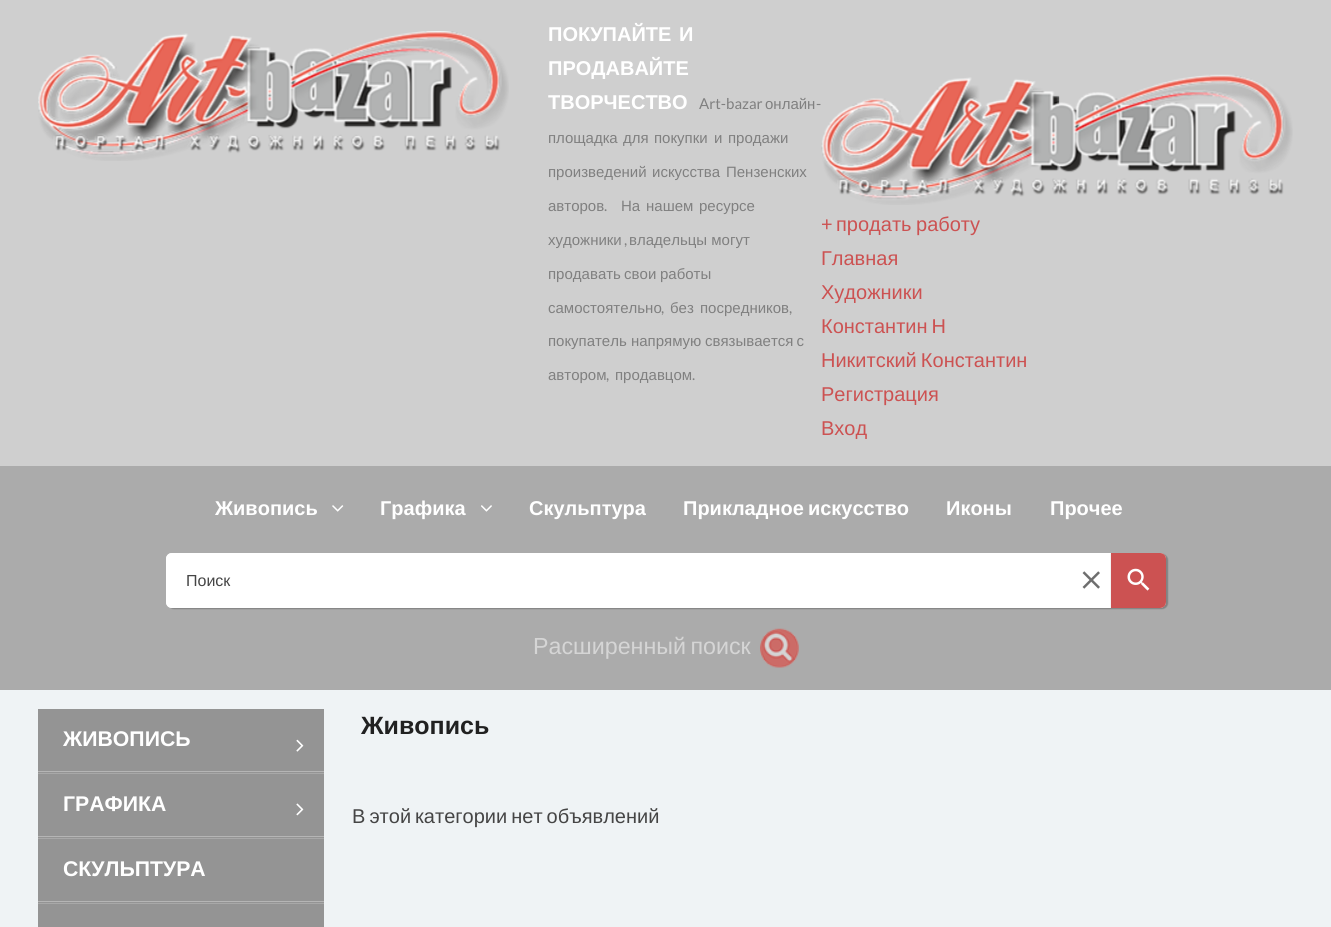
#include <cairo.h>
#include <math.h>
#include <stddef.h>

static cairo_t *c;
static void C(unsigned color){cairo_set_source_rgb(c, (color >> 16) / 255.0, (color >> 8 & 255) / 255.0, (color & 255) / 255.0);}
static void F(const char *family, double size, int italic, int bold){cairo_select_font_face(c, family, italic ? CAIRO_FONT_SLANT_ITALIC : CAIRO_FONT_SLANT_NORMAL,bold ? CAIRO_FONT_WEIGHT_BOLD : CAIRO_FONT_WEIGHT_NORMAL);cairo_set_font_size(c, size);}
static void T(double x, double y, const char *s){cairo_move_to(c, x, y);cairo_show_text(c, s);}
static void L(double x, double y, const char *s, double letter, double word){cairo_move_to(c, x, y);while (*s) {char ch[5] = {0};int n = 0;do ch[n++] = *s++; while ((*s & 0xC0) == 0x80);cairo_show_text(c, ch);cairo_rel_move_to(c, letter + word * (*ch == ' '), 0);}}
static void R(double x, double y, double w, double h){cairo_rectangle(c, x, y, w, h);cairo_fill(c);}
static void Q(double x, double y, double w, double h, double r){cairo_new_sub_path(c);cairo_arc(c, x + w - r, y + h - r, r, 0, M_PI / 2);cairo_arc(c, x + r, y + h - r, r, M_PI / 2, M_PI);cairo_arc(c, x + r, y + r, r, M_PI, 1.5 * M_PI);cairo_arc(c, x + w - r, y + r, r, 1.5 * M_PI, 2 * M_PI);cairo_close_path(c);}
static void S(double x, double y, double w, double h, double r, double blur, double alpha){cairo_push_group_with_content(c, CAIRO_CONTENT_ALPHA);cairo_set_operator(c, CAIRO_OPERATOR_SOURCE);for (int i = 15; i >= -15 && fmin(w, h) + blur * i / 3 > 0; i -= 2) {double e = blur * i / 6;cairo_set_source_rgba(c, 0, 0, 0, alpha * erfc((i - 1) / 8.5) / 2);Q(x - e, y - e, w + 2 * e, h + 2 * e, fmax(0, fmin(r + e + blur * .6, fmin(w, h) / 2 + e)));cairo_fill(c);}cairo_pattern_t *soft = cairo_pop_group(c);cairo_mask(c, soft);cairo_pattern_destroy(soft);}
static void I(const char *path, double x, double y, double w, double h){cairo_surface_t *image = cairo_image_surface_create_from_png(path);cairo_save(c);cairo_set_source_surface(c, image, x, y);cairo_rectangle(c, x, y, w, h);cairo_fill(c);cairo_restore(c);cairo_surface_destroy(image);}
int main(void) {
cairo_surface_t *surface = cairo_image_surface_create(CAIRO_FORMAT_RGB24, 1331, 927);
c = cairo_create(surface);
cairo_font_options_t *options = cairo_font_options_create();
cairo_font_options_set_hint_metrics(options, CAIRO_HINT_METRICS_OFF);
cairo_font_options_set_hint_style(options, CAIRO_HINT_STYLE_NONE);
cairo_set_font_options(c, options);
cairo_set_miter_limit(c, 4);
C(0xeff3f5);
cairo_paint(c);
C(0xcfcfcf);
R(0,0,1331,466);
I("1.png",38,31,471,130);
F("Liberation Sans",20,0,1);
C(0xffffff);
T(548,41,"ПОКУПАЙТЕ");
T(679,41,"И");
T(548,75,"ПРОДАВАЙТЕ");
cairo_save(c);
cairo_rectangle(c,548,0,273,405);
cairo_clip(c);
T(548,109,"ТВОРЧЕСТВО");
cairo_restore(c);
F("Lato",15,0,0);
C(0x808080);
T(699,109,"Art-bazar");
F("Liberation Sans",15,0,0);
T(765,109,"онлайн");
F("Lato",15,0,0);
T(816,109,"-");
F("Liberation Sans",15,0,0);
T(548,143,"площадка");
T(623,143,"для");
T(654,143,"покупки");
T(714,143,"и");
T(728,143,"продажи");
T(548,177,"произведений");
T(652,177,"искусства");
T(726,177,"Пензенских");
T(548,211,"авторов");
F("Lato",15,0,0);
T(604,211,".");
F("Liberation Sans",15,0,0);
T(621,211,"На");
T(646,211,"нашем");
T(699,211,"ресурсе");
T(548,245,"художники");
F("Lato",15,0,0);
T(624,245,",");
F("Liberation Sans",15,0,0);
T(629,245,"владельцы могут");
L(548,279,"продавать свои",0,-1);
T(660,279,"работы");
T(548,313,"самостоятельно");
F("Lato",15,0,0);
T(661,313,",");
F("Liberation Sans",15,0,0);
T(670,313,"без");
T(700,313,"посредников");
F("Lato",15,0,0);
T(789,313,",");
F("Liberation Sans",15,0,0);
T(548,346,"покупатель напрямую");
L(705,346,"связывается с",0,-1);
T(548,380,"автором");
F("Lato",15,0,0);
T(606,380,",");
F("Liberation Sans",15,0,0);
T(615,380,"продавцом");
F("Lato",15,0,0);
T(692,380,".");
I("2.png",821,74,472,131);
F("Lato",20,0,0);
C(0xcc5252);
T(821,231,"+");
F("Liberation Sans",20,0,0);
L(836,231,"продать работу",0,-1);
T(821,265,"Главная");
T(821,299,"Художники");
L(821,333,"Константин Н",0,-1.5);
L(821,367,"Никитский Константин",0,-1.5);
T(821,401,"Регистрация");
T(821,435,"Вход");
C(0xababab);
R(0,466,1331,224);
F("Liberation Sans",20,0,1);
C(0xffffff);
T(215,515,"Живопись");
I("3.png",332,505,12,7);
T(380,515,"Графика");
I("4.png",481,505,11,7);
T(529,515,"Скульптура");
L(683,515,"Прикладное искусство",0,-1.5);
T(946,515,"Иконы");
T(1050,515,"Прочее");
C(0x000000);
S(168,554,1000,55,6,.5,.24);
cairo_set_source_rgba(c,1,1,1,0.9);
Q(166,553,1000,55,6);
cairo_fill(c);
C(0xffffff);
cairo_new_path(c);
cairo_move_to(c,172,553);
cairo_line_to(c,1110,553);
cairo_line_to(c,1110,608);
cairo_line_to(c,172,608);
cairo_curve_to(c,168.5,608,166,605.5,166,602);
cairo_line_to(c,166,559);
cairo_curve_to(c,166,555.5,168.5,553,172,553);
cairo_close_path(c);
cairo_fill(c);
F("Liberation Sans",16,0,0);
C(0x454545);
T(186,586,"Поиск");
I("5.png",1082,571,18,18);
C(0xcc5252);
cairo_new_path(c);
cairo_move_to(c,1111,553);
cairo_line_to(c,1160,553);
cairo_curve_to(c,1163.5,553,1166,555.5,1166,559);
cairo_line_to(c,1166,602);
cairo_curve_to(c,1166,605.5,1163.5,608,1160,608);
cairo_line_to(c,1111,608);
cairo_close_path(c);
cairo_fill(c);
I("6.png",1127,568,23,23);
F("Liberation Sans",23.25,0,0);
C(0xd5d5d5);
L(533,654,"Расширенный поиск",0,-2);
I("7.png",760,628,39,40);
C(0x949494);
R(38,709,286,218);
C(0xb5b5b5);
R(38,771,286,1);
F("Liberation Sans",21.25,0,1);
C(0xffffff);
T(63,746,"ЖИВОПИСЬ");
I("8.png",296,739,8,13);
C(0xa8a8a8);
R(38,773,286,1);
C(0xb5b5b5);
R(38,836,286,1);
C(0xffffff);
T(63,811,"ГРАФИКА");
I("9.png",296,803,8,13);
C(0xa8a8a8);
R(38,838,286,1);
C(0xb5b5b5);
R(38,901,286,1);
C(0xffffff);
T(63,876,"СКУЛЬПТУРА");
C(0xa8a8a8);
R(38,903,286,1);
F("Liberation Sans",25,0,1);
C(0x212121);
T(361,734,"Живопись");
F("Liberation Sans",20,0,0);
C(0x454545);
L(352,823,"В этой категории нет объявлений",0,-1.5);
cairo_surface_write_to_png(surface, "o.png");
cairo_font_options_destroy(options);
cairo_destroy(c);
cairo_surface_destroy(surface);
return 0;
}
